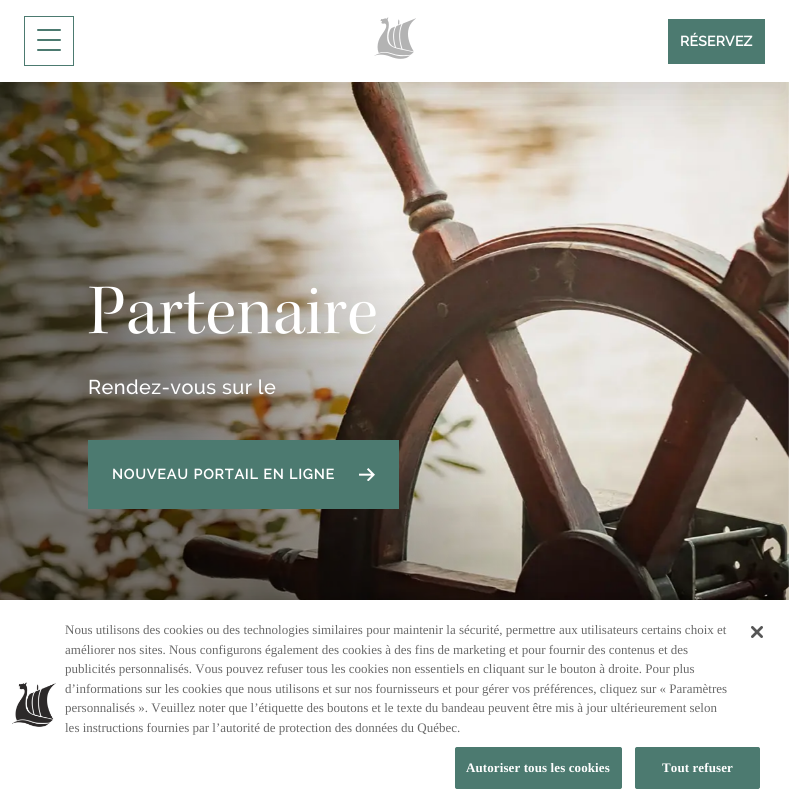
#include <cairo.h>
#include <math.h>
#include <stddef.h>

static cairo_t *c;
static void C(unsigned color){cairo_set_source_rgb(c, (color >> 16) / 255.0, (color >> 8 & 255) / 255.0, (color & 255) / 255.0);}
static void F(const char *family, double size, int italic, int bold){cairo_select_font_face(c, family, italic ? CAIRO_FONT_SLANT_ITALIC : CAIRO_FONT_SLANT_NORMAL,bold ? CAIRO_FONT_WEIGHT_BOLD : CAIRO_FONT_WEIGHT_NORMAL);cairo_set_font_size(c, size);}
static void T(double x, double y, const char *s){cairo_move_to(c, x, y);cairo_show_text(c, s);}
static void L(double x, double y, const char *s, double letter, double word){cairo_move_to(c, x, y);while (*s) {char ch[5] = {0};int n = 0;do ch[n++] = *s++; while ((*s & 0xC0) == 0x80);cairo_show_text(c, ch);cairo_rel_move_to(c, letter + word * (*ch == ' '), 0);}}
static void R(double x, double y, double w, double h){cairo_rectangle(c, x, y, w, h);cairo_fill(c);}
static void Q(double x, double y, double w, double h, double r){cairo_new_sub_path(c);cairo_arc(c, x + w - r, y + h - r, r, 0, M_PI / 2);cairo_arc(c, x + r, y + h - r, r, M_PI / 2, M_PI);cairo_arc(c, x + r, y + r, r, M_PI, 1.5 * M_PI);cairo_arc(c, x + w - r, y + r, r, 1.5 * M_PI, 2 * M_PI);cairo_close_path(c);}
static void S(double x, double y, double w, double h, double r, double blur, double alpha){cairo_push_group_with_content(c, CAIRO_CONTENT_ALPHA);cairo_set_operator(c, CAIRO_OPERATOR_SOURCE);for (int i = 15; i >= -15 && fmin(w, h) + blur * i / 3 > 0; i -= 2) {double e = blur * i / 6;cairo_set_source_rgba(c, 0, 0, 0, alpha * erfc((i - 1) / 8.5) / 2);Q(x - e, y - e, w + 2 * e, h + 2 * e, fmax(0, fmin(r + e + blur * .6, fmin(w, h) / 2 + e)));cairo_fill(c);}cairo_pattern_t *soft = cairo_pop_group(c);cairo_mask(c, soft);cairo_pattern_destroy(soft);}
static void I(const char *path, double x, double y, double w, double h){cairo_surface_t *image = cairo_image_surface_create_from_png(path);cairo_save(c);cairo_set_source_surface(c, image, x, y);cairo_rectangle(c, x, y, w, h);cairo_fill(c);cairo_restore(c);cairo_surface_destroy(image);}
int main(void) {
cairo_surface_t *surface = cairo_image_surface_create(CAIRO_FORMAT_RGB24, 789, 809);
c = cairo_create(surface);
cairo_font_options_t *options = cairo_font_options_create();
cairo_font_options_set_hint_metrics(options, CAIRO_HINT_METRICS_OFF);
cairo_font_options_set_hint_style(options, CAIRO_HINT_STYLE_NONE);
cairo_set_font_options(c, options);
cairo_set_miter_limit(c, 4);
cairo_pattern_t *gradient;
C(0xffffff);
cairo_paint(c);
I("2.png",0,82,789,518);
gradient = cairo_pattern_create_linear(-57,533,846,-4.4);
cairo_pattern_add_color_stop_rgba(gradient,.24,0,0,0,.5);
cairo_pattern_add_color_stop_rgba(gradient,.5,0,0,0,0);
cairo_set_source(c,gradient);
cairo_pattern_destroy(gradient);
R(0,82,538,518);
C(0x000000);
S(0,15,789,82,0,17.5,.1);
C(0xffffff);
R(0,0,789,82);
cairo_rectangle(c,24.5,16.5,49,49);
C(0x4c7a70);
cairo_set_line_width(c,1);
cairo_stroke(c);
Q(37,29,24,2,1);
cairo_fill(c);
Q(37,39,24,2,1);
cairo_fill(c);
Q(37,49,24,2,1);
cairo_fill(c);
I("1.png",374,17,42,42);
R(668,19,97,45);
F("Raleway",14,0,1);
C(0xffffff);
L(680,46,"RÉSERVEZ",.25,0);
I("3.png",88,286,288,48);
F("Raleway Medium",20,0,0);
L(88,394,"Rendez-vous sur le",.4,0);
C(0x4c7a70);
R(88,440,311,69);
F("Raleway",14,0,1);
C(0xffffff);
L(112,479,"NOUVEAU PORTAIL EN LIGNE",1,0);
I("4.png",359,468,16,13);
C(0x000000);
S(0,600,789,209,0,9,.2);
C(0xffffff);
R(0,600,789,209);
I("5.png",12,682,44,45);
F("Liberation Serif",13,0,0);
C(0x696969);
T(65,634,"Nous utilisons des cookies ou des technologies similaires pour maintenir la sécurité, permettre aux utilisateurs certains choix et");
T(65,654,"améliorer nos sites. Nous configurons également des cookies à des fins de marketing et pour fournir des contenus et des");
T(65,673,"publicités personnalisés. Vous pouvez refuser tous les cookies non essentiels en cliquant sur le bouton à droite. Pour plus");
T(65,693,"d’informations sur les cookies que nous utilisons et sur nos fournisseurs et pour gérer vos préférences, cliquez sur « Paramètres");
T(65,712,"personnalisés ». Veuillez noter que l’étiquette des boutons et le texte du bandeau peuvent être mis à jour ultérieurement selon");
T(65,732,"les instructions fournies par l’autorité de protection des données du Québec.");
C(0x4c7a70);
Q(455.5,747.5,166,41,1.5);
cairo_fill_preserve(c);
cairo_stroke(c);
F("Liberation Serif",13,0,1);
C(0xffffff);
L(466,772,"Autoriser tous les cookies",.1,0);
C(0x4c7a70);
Q(635.5,747.5,124,41,1.5);
cairo_fill_preserve(c);
cairo_stroke(c);
C(0xffffff);
L(662,772,"Tout refuser",.1,0);
I("6.png",751,626,12,12);
cairo_surface_write_to_png(surface, "o.png");
cairo_font_options_destroy(options);
cairo_destroy(c);
cairo_surface_destroy(surface);
return 0;
}
